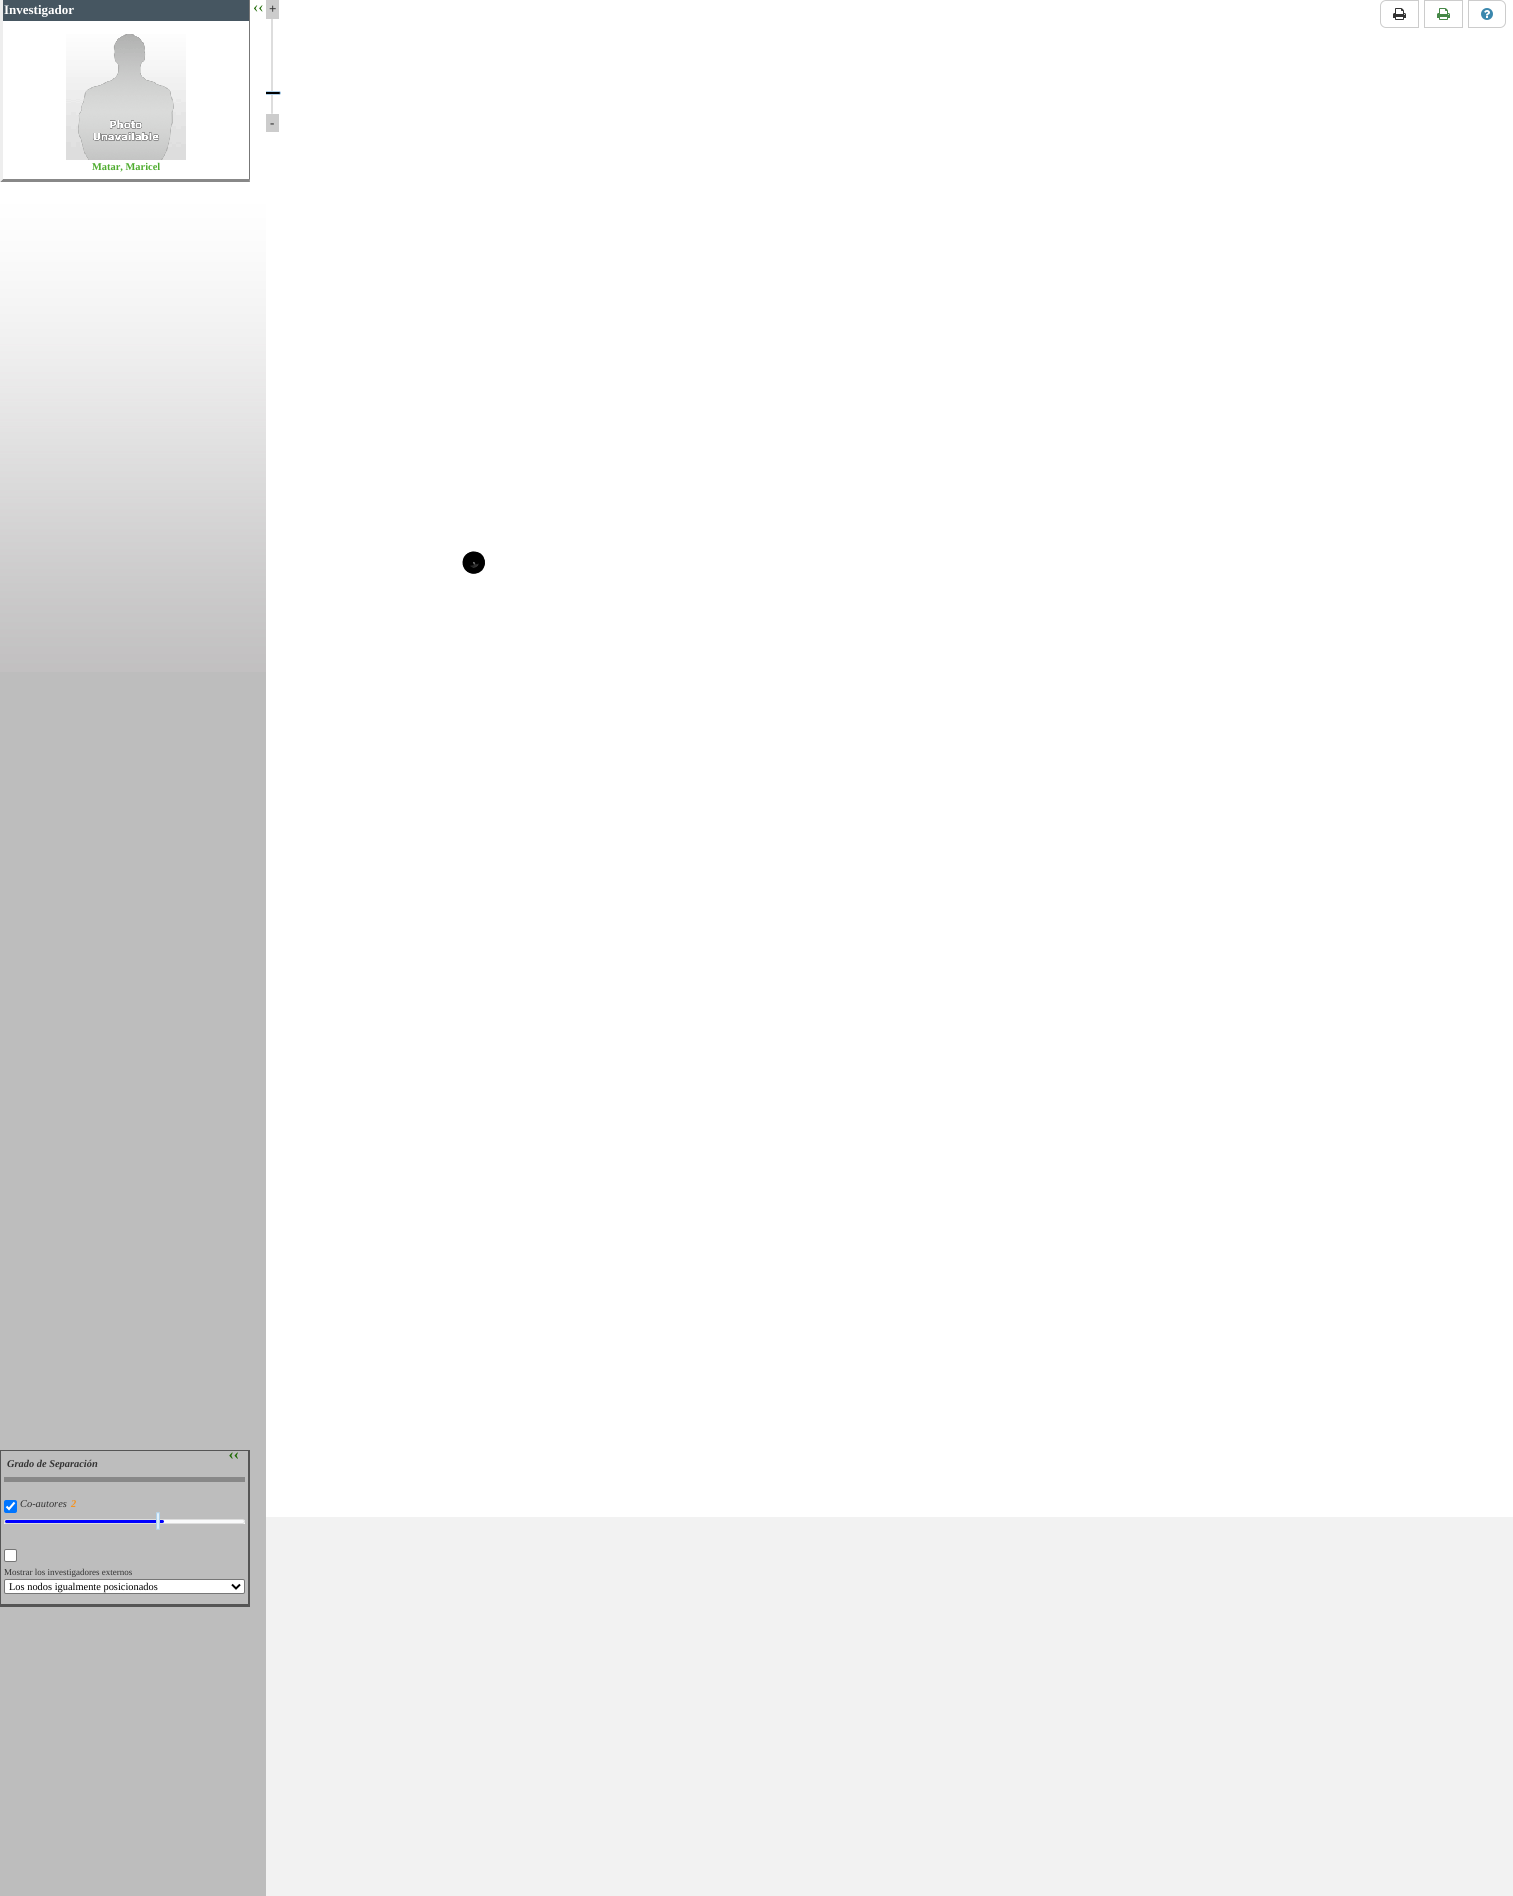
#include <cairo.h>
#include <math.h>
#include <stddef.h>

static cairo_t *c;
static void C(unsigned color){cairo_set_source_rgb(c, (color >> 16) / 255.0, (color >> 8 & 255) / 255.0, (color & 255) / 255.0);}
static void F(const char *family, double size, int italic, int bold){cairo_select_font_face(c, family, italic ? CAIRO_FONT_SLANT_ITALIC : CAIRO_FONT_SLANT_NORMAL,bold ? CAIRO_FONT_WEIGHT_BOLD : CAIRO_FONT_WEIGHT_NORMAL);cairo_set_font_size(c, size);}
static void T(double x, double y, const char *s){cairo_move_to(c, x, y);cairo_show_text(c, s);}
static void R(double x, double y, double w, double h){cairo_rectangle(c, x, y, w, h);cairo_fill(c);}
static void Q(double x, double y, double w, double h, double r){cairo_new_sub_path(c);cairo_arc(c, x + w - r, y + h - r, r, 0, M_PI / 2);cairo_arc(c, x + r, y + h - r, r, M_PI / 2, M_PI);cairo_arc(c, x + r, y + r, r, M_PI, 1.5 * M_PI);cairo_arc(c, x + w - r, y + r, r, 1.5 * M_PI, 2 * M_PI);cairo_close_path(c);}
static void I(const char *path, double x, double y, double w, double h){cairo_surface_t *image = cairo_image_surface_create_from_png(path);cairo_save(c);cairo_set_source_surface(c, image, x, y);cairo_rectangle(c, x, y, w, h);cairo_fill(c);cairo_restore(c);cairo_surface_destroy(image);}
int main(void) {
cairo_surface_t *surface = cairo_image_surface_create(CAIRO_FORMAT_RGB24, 1513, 1896);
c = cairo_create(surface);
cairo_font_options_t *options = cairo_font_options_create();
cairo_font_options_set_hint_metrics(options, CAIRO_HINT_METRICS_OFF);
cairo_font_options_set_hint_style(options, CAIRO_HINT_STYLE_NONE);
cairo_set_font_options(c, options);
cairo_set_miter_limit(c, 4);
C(0xf2f2f2);
cairo_paint(c);
C(0xbdbdbd);
R(0,672,266,1224);
I("1.png",0,21,250,651);
C(0x777777);
cairo_new_path(c);
cairo_move_to(c,250,0);
cairo_line_to(c,250,182);
cairo_line_to(c,249,179);
cairo_line_to(c,249,0);
cairo_close_path(c);
cairo_fill(c);
C(0x888888);
cairo_new_path(c);
cairo_move_to(c,250,182);
cairo_line_to(c,0,182);
cairo_line_to(c,3,179);
cairo_line_to(c,249,179);
cairo_close_path(c);
cairo_fill(c);
C(0xeeeeee);
cairo_new_path(c);
cairo_move_to(c,0,182);
cairo_line_to(c,0,0);
cairo_line_to(c,3,0);
cairo_line_to(c,3,179);
cairo_close_path(c);
cairo_fill(c);
C(0x465661);
R(3,0,246,21);
F("Liberation Serif",13,0,1);
C(0xffffff);
T(4,14,"Investigador");
I("2.png",66,34,120,126);
F("Liberation Serif",10.4,0,1);
C(0x4eac2e);
T(92,170,"Matar, Maricel");
C(0x555555);
R(0,1450,250,1);
R(248,1450,2,157);
R(0,1604,250,3);
R(0,1450,1,157);
C(0x888888);
R(4,1477,241,5);
F("Liberation Serif",16,0,1);
C(0x1e6a04);
cairo_save(c);
cairo_translate(c,239,1452);
cairo_rotate(c,180 * M_PI / 180);
T(0,0,"››");
cairo_restore(c);
F("Liberation Serif",10.4,1,1);
C(0x333333);
T(7,1467,"Grado de Separación");
C(0x0075ff);
Q(4,1500,13,13,2);
cairo_fill(c);
cairo_new_path(c);
cairo_move_to(c,6.5,1506.5);
cairo_line_to(c,9,1509);
cairo_line_to(c,14.5,1502.5);
C(0xffffff);
cairo_set_line_width(c,2.1);
cairo_stroke(c);
F("Liberation Serif",10.4,1,0);
C(0x333333);
T(20,1507,"Co-autores");
F("Liberation Serif",10.4,1,1);
C(0xf6931f);
T(71,1507,"2");
C(0xf9fafb);
R(4,1520,241,4);
Q(4.5,1519.5,240,4,2);
C(0xdddddd);
cairo_set_line_width(c,1);
cairo_stroke(c);
C(0x0000ff);
Q(5,1520,159,3,1.5);
cairo_fill(c);
I("3.png",156,1512,4,18);
Q(156.5,1512.5,3,17,1.5);
C(0xaed0ea);
cairo_stroke(c);
C(0xffffff);
Q(4.5,1549.5,12,12,1.5);
cairo_fill_preserve(c);
C(0x767676);
cairo_stroke(c);
F("Liberation Serif",9,0,0);
C(0x333333);
T(4,1575,"Mostrar los investigadores externos");
C(0xffffff);
Q(4.5,1579.5,240,14,1.5);
cairo_fill_preserve(c);
C(0x767676);
cairo_stroke(c);
cairo_new_path(c);
cairo_move_to(c,232,1584.5);
cairo_line_to(c,236,1588.5);
cairo_line_to(c,240,1584.5);
C(0x000000);
cairo_set_line_width(c,2);
cairo_stroke(c);
F("Liberation Serif",10.4,0,0);
T(9,1590,"Los nodos igualmente posicionados");
C(0xffffff);
R(266,0,1247,1517);
C(0xdddddd);
Q(271,14,2,100,1);
cairo_fill(c);
C(0x000000);
Q(263.5,91.5,17,3,1.5);
cairo_fill_preserve(c);
C(0xaed0ea);
cairo_set_line_width(c,1);
cairo_stroke(c);
I("4.png",250,0,16,672);
F("Liberation Serif",16,0,0);
C(0x1e6a04);
T(253,12,"‹‹");
C(0xcccccc);
R(266,0,13,19);
F("Liberation Serif",13,0,1);
C(0x333333);
T(269,13,"+");
C(0xcccccc);
R(266,114,13,18);
C(0x333333);
T(270,127,"-");
cairo_new_path(c);
cairo_move_to(c,1386,.5);
cairo_line_to(c,1418.5,.5);
cairo_line_to(c,1418.5,27.5);
cairo_line_to(c,1386,27.5);
cairo_curve_to(c,1383,27.5,1380.5,25,1380.5,22);
cairo_line_to(c,1380.5,6);
cairo_curve_to(c,1380.5,3,1383,.5,1386,.5);
cairo_close_path(c);
C(0xcccccc);
cairo_stroke(c);
I("5.png",1393,8,13,12);
cairo_rectangle(c,1424.5,.5,38,27);
cairo_stroke(c);
I("6.png",1437,8,13,12);
cairo_new_path(c);
cairo_move_to(c,1468.5,.5);
cairo_line_to(c,1500,.5);
cairo_curve_to(c,1503,.5,1505.5,3,1505.5,6);
cairo_line_to(c,1505.5,22);
cairo_curve_to(c,1505.5,25,1503,27.5,1500,27.5);
cairo_line_to(c,1468.5,27.5);
cairo_close_path(c);
cairo_stroke(c);
I("7.png",1481,8,12,12);
I("8.png",462,551,23,23);
cairo_surface_write_to_png(surface, "o.png");
cairo_font_options_destroy(options);
cairo_destroy(c);
cairo_surface_destroy(surface);
return 0;
}
